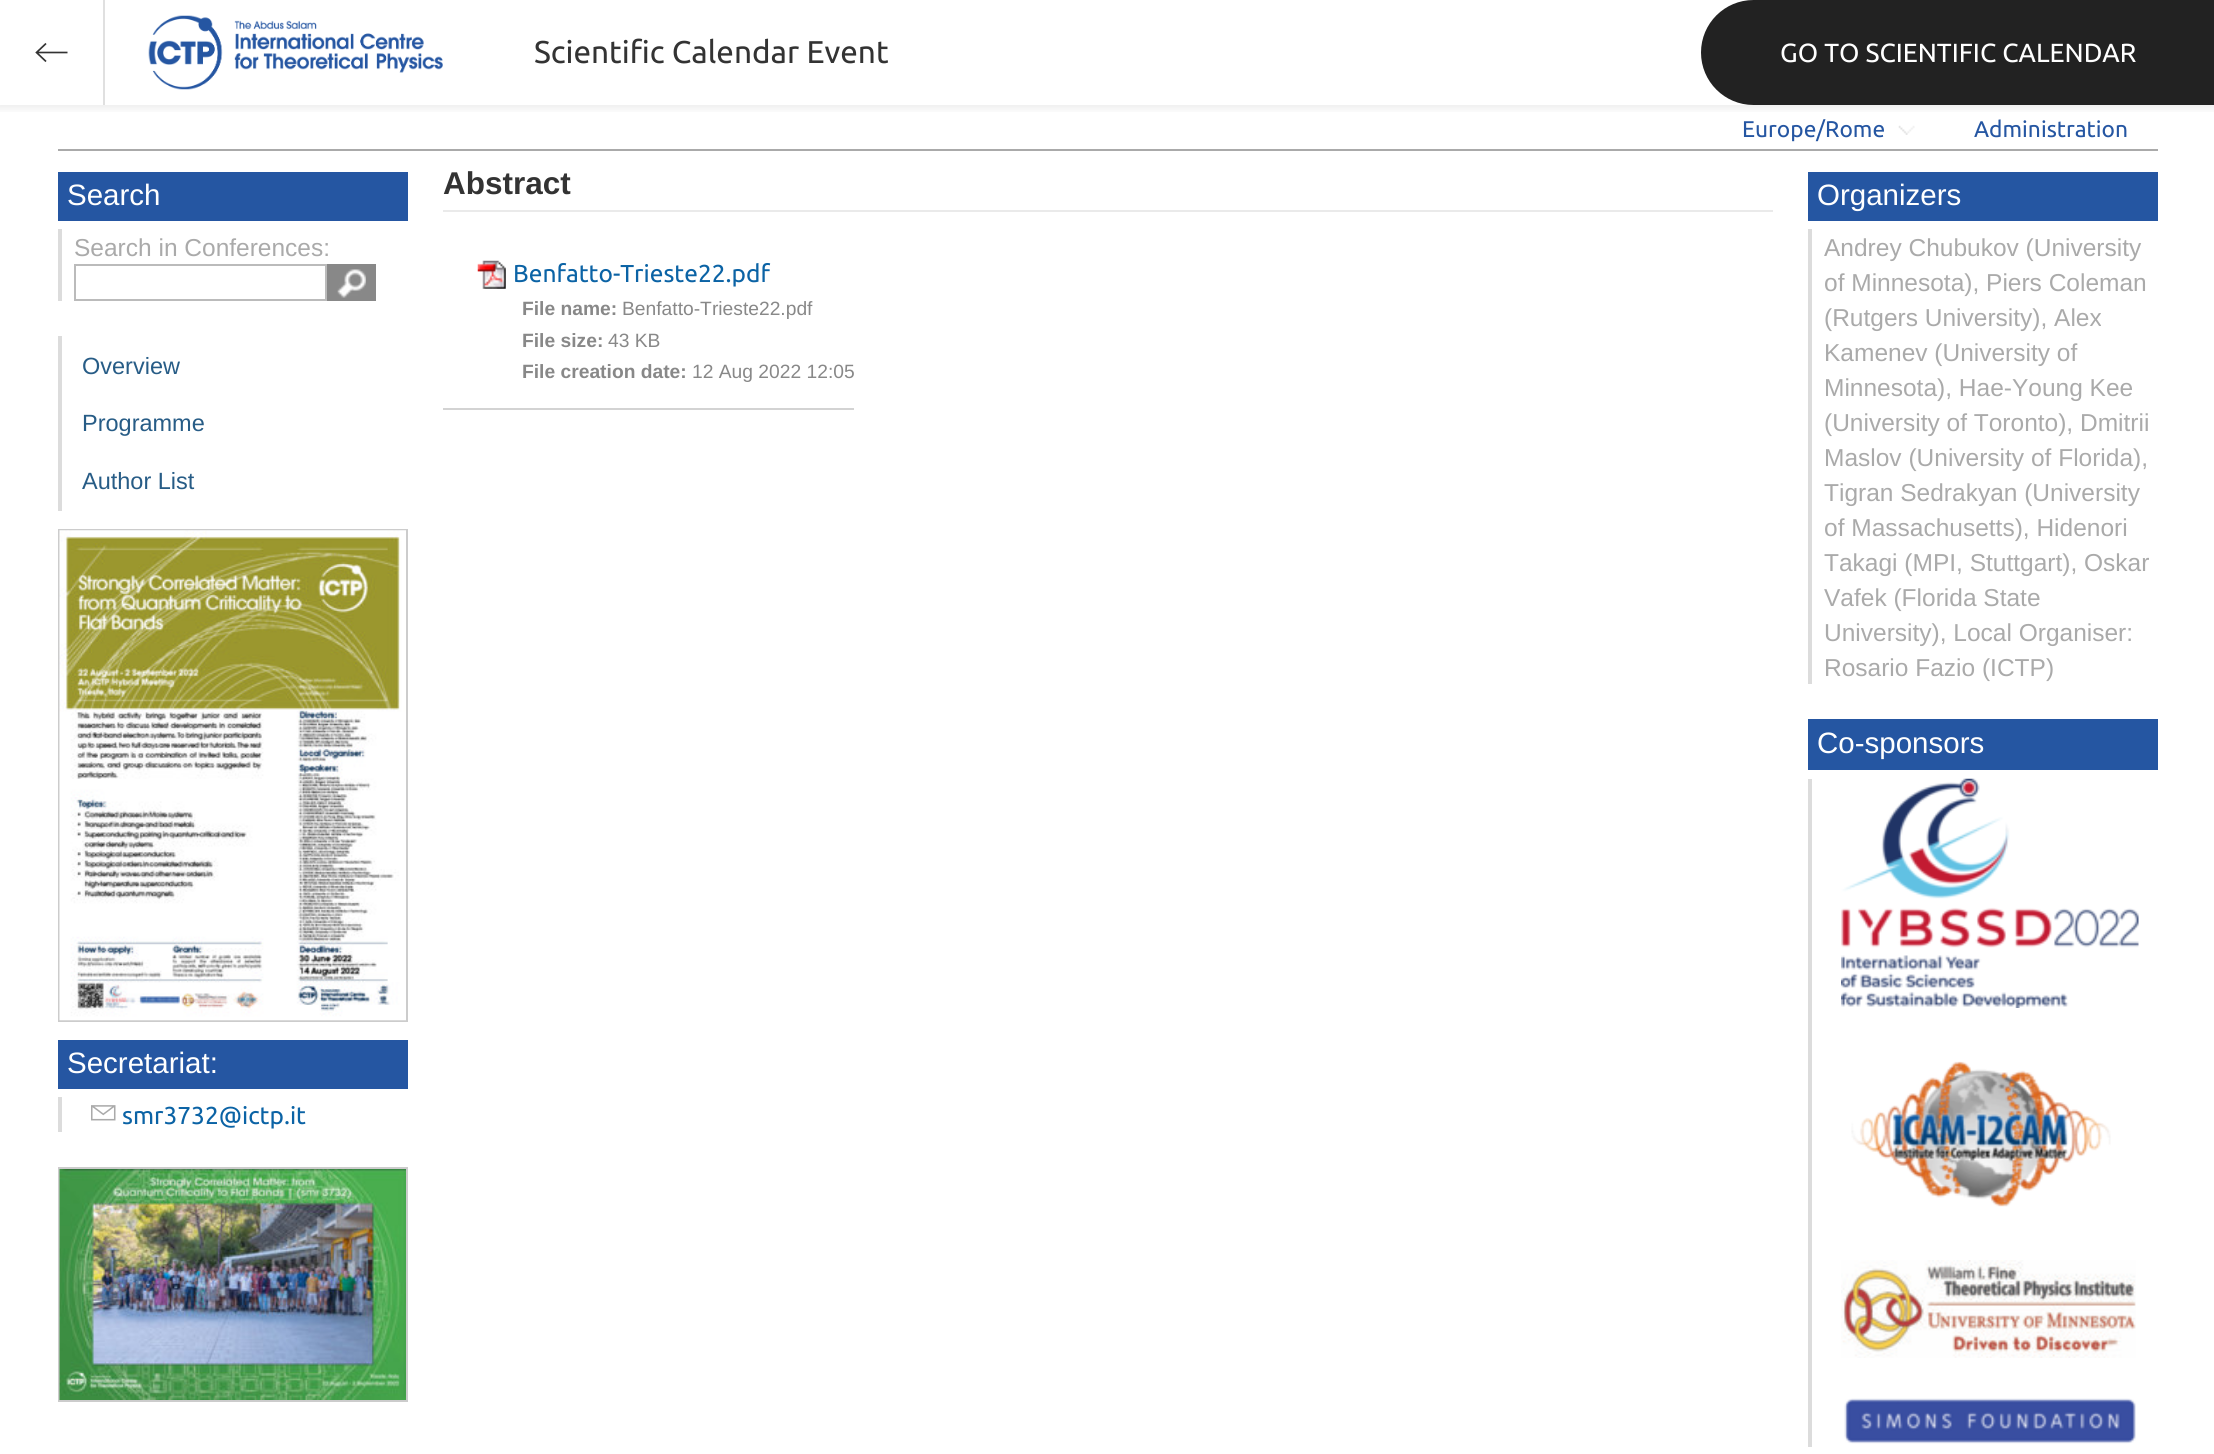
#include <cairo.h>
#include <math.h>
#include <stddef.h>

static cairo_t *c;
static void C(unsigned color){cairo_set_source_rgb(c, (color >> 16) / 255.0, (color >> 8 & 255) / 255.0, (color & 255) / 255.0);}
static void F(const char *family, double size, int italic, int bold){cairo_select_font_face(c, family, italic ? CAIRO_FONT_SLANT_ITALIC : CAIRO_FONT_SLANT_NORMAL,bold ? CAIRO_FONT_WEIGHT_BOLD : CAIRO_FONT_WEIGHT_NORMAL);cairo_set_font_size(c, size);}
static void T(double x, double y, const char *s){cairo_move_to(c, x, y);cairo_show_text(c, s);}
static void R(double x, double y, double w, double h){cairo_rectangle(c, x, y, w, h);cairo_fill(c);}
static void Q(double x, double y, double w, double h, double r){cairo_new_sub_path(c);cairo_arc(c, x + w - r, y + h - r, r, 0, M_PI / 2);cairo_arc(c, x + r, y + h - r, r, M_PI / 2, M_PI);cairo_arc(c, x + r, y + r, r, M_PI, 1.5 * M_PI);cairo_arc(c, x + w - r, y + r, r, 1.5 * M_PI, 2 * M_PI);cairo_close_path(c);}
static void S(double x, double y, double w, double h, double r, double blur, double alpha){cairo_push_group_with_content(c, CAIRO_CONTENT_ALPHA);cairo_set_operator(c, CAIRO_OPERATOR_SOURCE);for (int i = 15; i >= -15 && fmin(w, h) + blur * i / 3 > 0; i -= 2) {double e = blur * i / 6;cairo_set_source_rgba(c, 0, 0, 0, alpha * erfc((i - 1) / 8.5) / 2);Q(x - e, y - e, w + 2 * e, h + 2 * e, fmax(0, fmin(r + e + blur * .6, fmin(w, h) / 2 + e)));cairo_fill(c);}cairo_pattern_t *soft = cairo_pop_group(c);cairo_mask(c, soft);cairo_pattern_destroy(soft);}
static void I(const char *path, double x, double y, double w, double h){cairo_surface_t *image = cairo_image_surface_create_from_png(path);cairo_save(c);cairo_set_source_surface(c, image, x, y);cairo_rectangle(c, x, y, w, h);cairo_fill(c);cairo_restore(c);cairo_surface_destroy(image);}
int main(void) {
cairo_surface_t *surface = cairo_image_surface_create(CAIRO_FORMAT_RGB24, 2214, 1454);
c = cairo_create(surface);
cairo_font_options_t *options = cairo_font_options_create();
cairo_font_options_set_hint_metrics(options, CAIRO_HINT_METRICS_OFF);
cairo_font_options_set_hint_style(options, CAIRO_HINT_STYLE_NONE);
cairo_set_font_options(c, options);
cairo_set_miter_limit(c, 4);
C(0xffffff);
cairo_paint(c);
cairo_save(c);
cairo_rectangle(c,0,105,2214,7);
cairo_clip(c);
C(0x000000);
S(-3,-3,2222,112,0,4.5,.07);
cairo_restore(c);
C(0xe0e0e0);
R(103,0,2,105);
cairo_new_path(c);
cairo_move_to(c,46,61.5);
cairo_line_to(c,36.5,52.5);
cairo_line_to(c,46,43.5);
cairo_move_to(c,36.5,52.5);
cairo_line_to(c,67.5,52.5);
C(0x333333);
cairo_set_line_width(c,1.7);
cairo_stroke(c);
I("1.png",148,15,295,75);
F("Ubuntu",31.5,0,0);
T(534,63,"Scientific Calendar Event");
C(0x222222);
cairo_new_path(c);
cairo_move_to(c,1753.5,0);
cairo_line_to(c,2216,0);
cairo_line_to(c,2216,105);
cairo_line_to(c,1753.5,105);
cairo_curve_to(c,1724.5,105,1701,81.5,1701,52.5);
cairo_curve_to(c,1701,23.5,1724.5,0,1753.5,0);
cairo_close_path(c);
cairo_fill(c);
F("Ubuntu",26.25,0,0);
C(0xffffff);
T(1780,62,"GO TO SCIENTIFIC CALENDAR");
C(0xaaaaaa);
R(58,149,2100,2);
I("2.png",1898,125,17,10);
F("Ubuntu",22.75,0,0);
C(0x2556a2);
T(1742,137,"Europe/Rome");
T(1974,137,"Administration");
R(58,172,350,49);
F("Liberation Sans",29.5,0,0);
C(0xffffff);
T(67,205,"Search");
C(0xdcdcdc);
R(58,229,4,72);
F("Liberation Sans",24.5,0,0);
C(0xaaaaaa);
T(74,256,"Search in Conferences:");
cairo_rectangle(c,75,265,251,35);
C(0xbbbbbb);
cairo_set_line_width(c,2);
cairo_stroke(c);
C(0x888888);
R(327,264,49,37);
I("3.png",337,269,29,29);
C(0xdcdcdc);
R(58,336,4,175);
F("Liberation Sans",23.5,0,0);
C(0x275c86);
T(82,374,"Overview");
T(82,431,"Programme");
T(82,489,"Author List");
cairo_rectangle(c,59,530,348,491);
C(0xcccccc);
cairo_stroke(c);
I("4.png",59,530,347,491);
C(0x2556a2);
R(58,1040,350,49);
F("Liberation Sans",29.5,0,0);
C(0xffffff);
T(67,1073,"Secretariat:");
C(0xdcdcdc);
R(58,1097,4,35);
I("5.png",91,1105,25,16);
F("Ubuntu",24.5,0,0);
C(0x0b63a5);
T(122,1124,"smr3732@ictp.it");
cairo_rectangle(c,59,1168,348,233);
C(0xcccccc);
cairo_stroke(c);
I("6.png",59,1169,347,231);
C(0xeaeaea);
R(443,210,1330,2);
F("Liberation Sans",31.5,0,1);
C(0x333333);
T(443,194,"Abstract");
C(0xd3d3d3);
R(443,408,411,2);
I("7.png",477,260,29,29);
F("Ubuntu",24.5,0,0);
C(0x0b63a5);
T(513,282,"Benfatto-Trieste22.pdf");
F("Liberation Sans",19.25,0,1);
C(0x888888);
T(522,315,"File name:");
F("Liberation Sans",19.25,0,0);
T(622,315,"Benfatto-Trieste22.pdf");
F("Liberation Sans",19.25,0,1);
T(522,347,"File size:");
F("Liberation Sans",19.25,0,0);
T(608,347,"43 KB");
F("Liberation Sans",19.25,0,1);
T(522,378,"File creation date:");
F("Liberation Sans",19.25,0,0);
T(692,378,"12 Aug 2022 12:05");
C(0x2556a2);
R(1808,172,350,49);
F("Liberation Sans",29.5,0,0);
C(0xffffff);
T(1817,205,"Organizers");
C(0xdcdcdc);
R(1808,229,4,455);
F("Liberation Sans",24.5,0,0);
C(0xaaaaaa);
T(1824,256,"Andrey Chubukov (University");
T(1824,291,"of Minnesota), Piers Coleman");
T(1824,326,"(Rutgers University), Alex");
T(1824,361,"Kamenev (University of");
T(1824,396,"Minnesota), Hae-Young Kee");
T(1824,431,"(University of Toronto), Dmitrii");
T(1824,466,"Maslov (University of Florida),");
T(1824,501,"Tigran Sedrakyan (University");
T(1824,536,"of Massachusetts), Hidenori");
T(1824,571,"Takagi (MPI, Stuttgart), Oskar");
T(1824,606,"Vafek (Florida State");
T(1824,641,"University), Local Organiser:");
T(1824,676,"Rosario Fazio (ICTP)");
C(0x2556a2);
R(1808,719,350,51);
F("Liberation Sans",29.5,0,0);
C(0xffffff);
T(1817,753,"Co-sponsors");
C(0xdcdcdc);
R(1808,779,4,668);
I("8.png",1841,778,298,230);
I("9.png",1851,1061,260,146);
I("10.png",1841,1260,295,98);
I("11.png",1844,1398,292,46);
cairo_surface_write_to_png(surface, "o.png");
cairo_font_options_destroy(options);
cairo_destroy(c);
cairo_surface_destroy(surface);
return 0;
}
